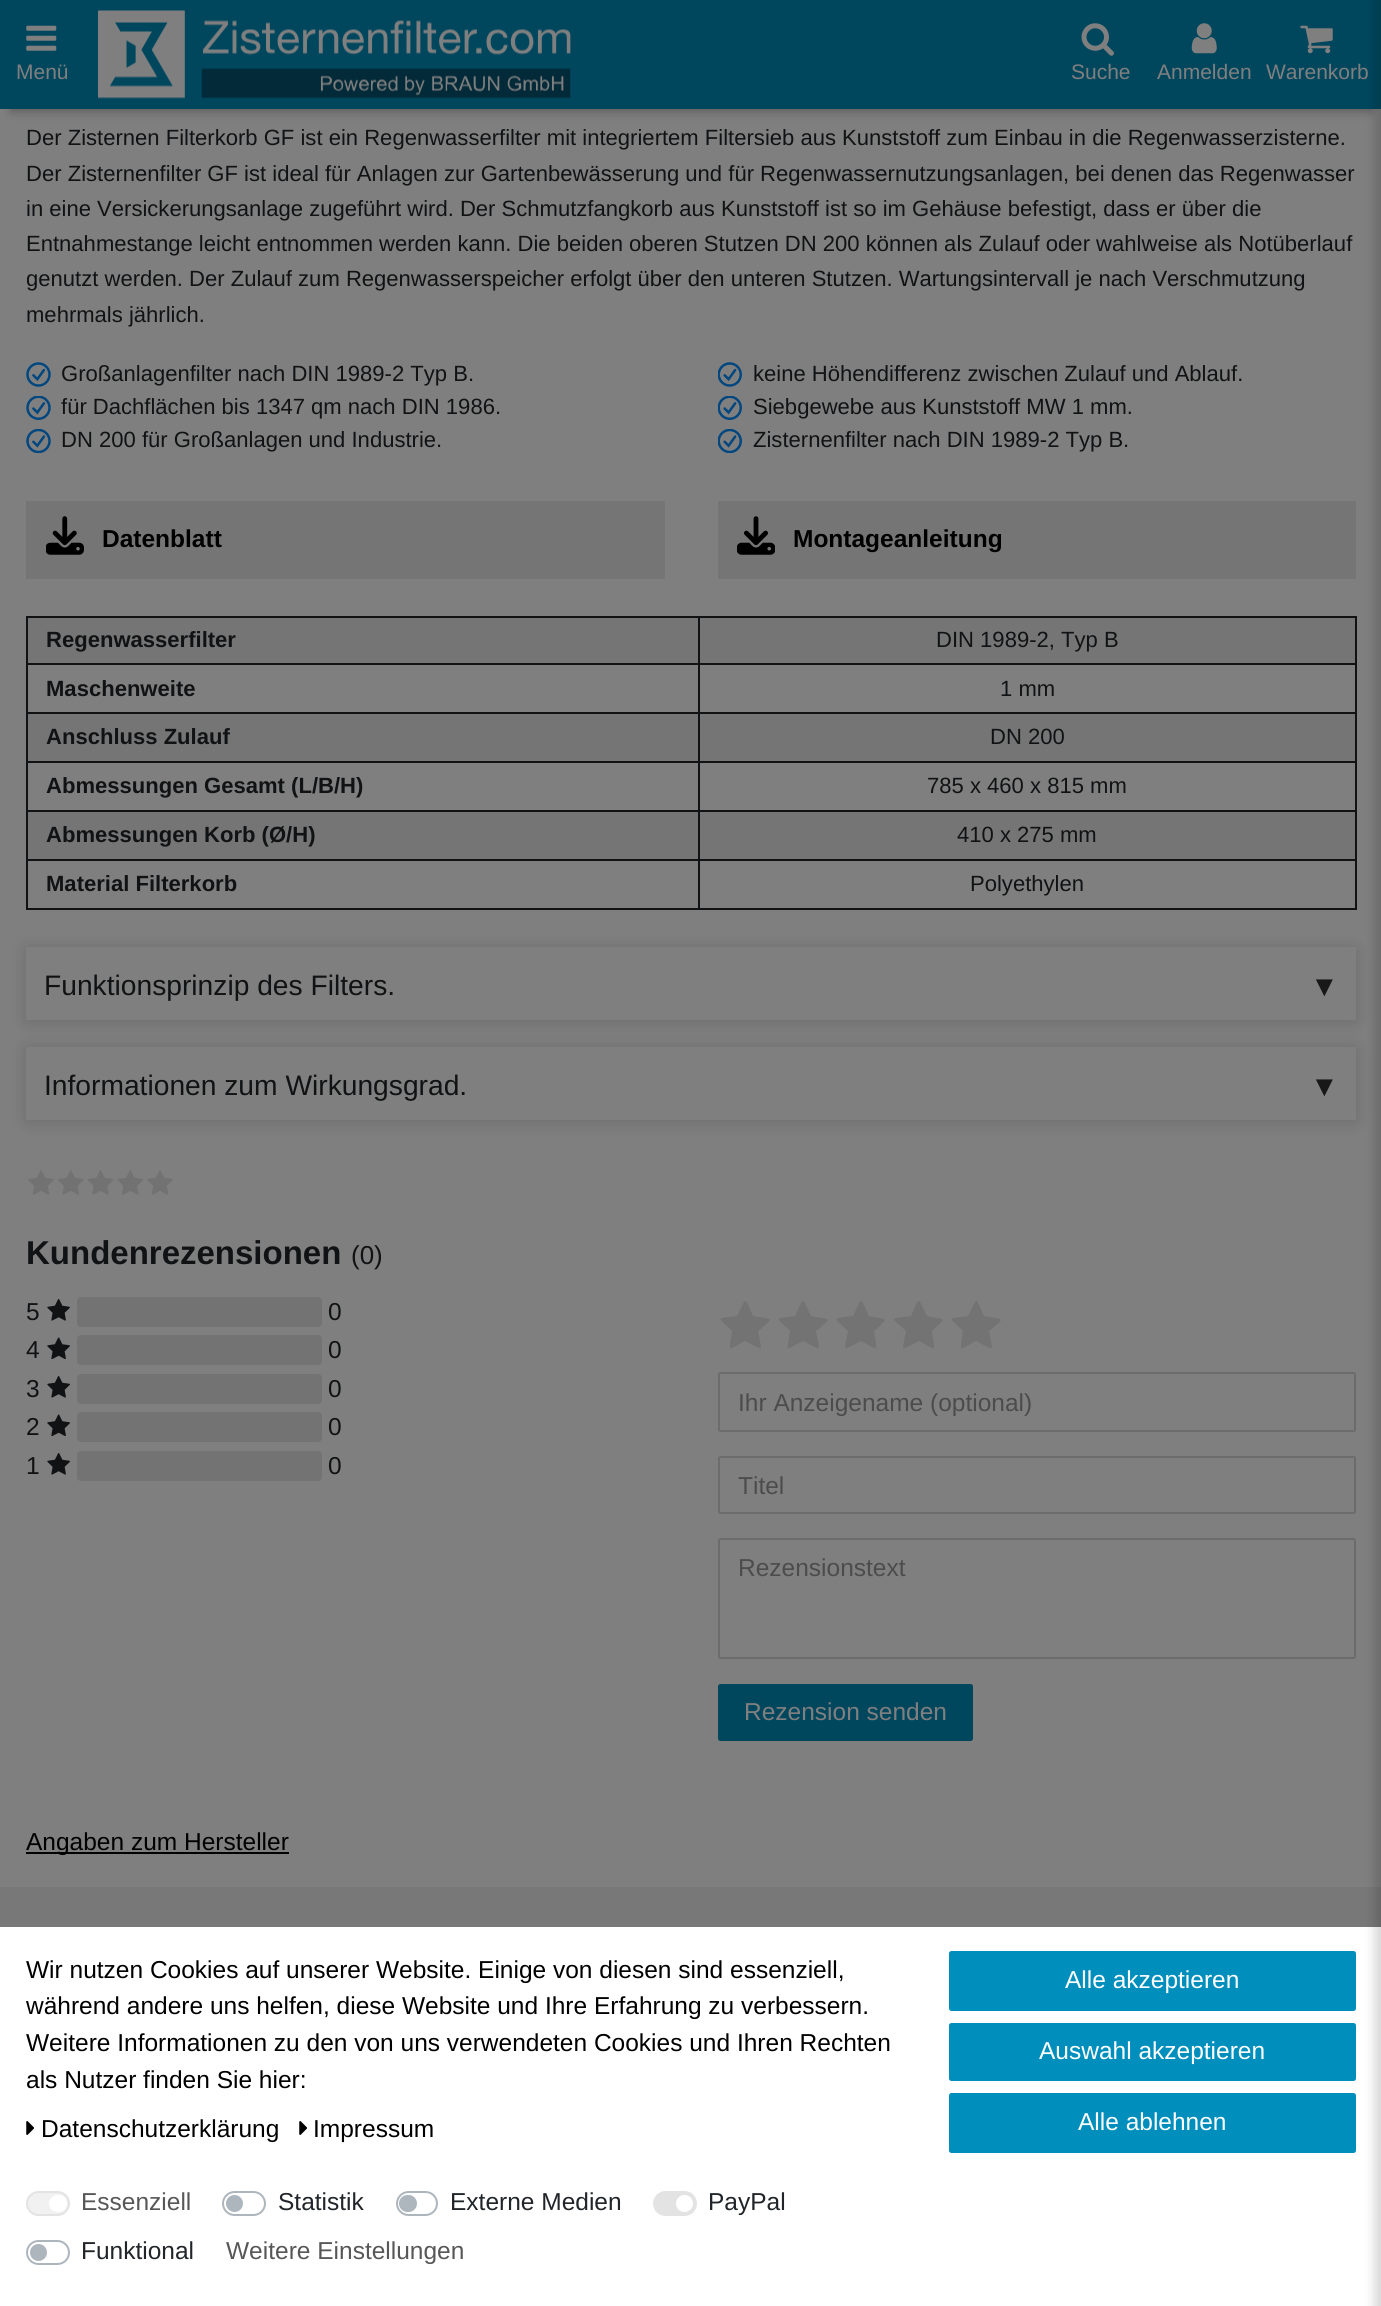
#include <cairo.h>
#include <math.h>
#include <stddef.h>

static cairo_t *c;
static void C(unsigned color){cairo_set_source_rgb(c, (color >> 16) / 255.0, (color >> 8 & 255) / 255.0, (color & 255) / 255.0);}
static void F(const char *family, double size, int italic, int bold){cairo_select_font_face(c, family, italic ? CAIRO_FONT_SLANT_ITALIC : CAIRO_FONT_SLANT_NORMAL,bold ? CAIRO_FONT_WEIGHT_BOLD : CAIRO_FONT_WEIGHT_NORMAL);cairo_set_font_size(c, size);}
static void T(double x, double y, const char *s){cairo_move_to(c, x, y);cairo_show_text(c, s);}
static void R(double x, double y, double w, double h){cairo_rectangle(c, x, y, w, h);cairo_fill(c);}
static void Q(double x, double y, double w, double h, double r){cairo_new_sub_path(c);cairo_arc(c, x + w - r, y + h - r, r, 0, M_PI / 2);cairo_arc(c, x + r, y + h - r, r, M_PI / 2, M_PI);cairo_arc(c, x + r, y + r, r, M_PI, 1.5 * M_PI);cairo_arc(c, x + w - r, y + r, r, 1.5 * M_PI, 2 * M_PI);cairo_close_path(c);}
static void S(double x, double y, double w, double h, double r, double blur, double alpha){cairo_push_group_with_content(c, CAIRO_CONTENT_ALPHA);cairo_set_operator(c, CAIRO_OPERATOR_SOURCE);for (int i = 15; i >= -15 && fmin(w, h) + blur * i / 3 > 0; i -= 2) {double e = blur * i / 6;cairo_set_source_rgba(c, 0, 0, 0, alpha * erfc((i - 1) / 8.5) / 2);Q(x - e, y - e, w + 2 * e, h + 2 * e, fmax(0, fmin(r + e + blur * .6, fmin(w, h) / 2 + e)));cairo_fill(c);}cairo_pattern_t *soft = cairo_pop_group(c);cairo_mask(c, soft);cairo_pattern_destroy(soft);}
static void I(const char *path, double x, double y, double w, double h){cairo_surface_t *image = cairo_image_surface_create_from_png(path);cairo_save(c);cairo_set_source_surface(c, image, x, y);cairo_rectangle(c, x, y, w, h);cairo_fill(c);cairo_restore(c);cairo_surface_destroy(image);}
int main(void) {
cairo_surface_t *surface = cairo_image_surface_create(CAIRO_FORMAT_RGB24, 1381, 2306);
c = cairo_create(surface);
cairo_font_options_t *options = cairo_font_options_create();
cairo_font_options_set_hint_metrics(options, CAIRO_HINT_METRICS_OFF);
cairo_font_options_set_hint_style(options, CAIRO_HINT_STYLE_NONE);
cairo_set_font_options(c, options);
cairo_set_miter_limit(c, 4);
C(0xffffff);
cairo_paint(c);
C(0x000000);
S(11,25,1361,87,0,5,.25);
C(0x008ebd);
R(0,0,1381,109);
I("1.png",26,25,31,26);
F("Liberation Sans",21,0,0);
C(0xffffff);
T(16,79,"Menü");
I("2.png",98,10,473,89);
I("3.png",1081,23,33,33);
T(1071,79,"Suche");
I("4.png",1191,23,26,31);
T(1157,79,"Anmelden");
I("5.png",1300,25,33,29);
T(1266,79,"Warenkorb");
C(0xf0f0f0);
R(0,1887,1381,40);
F("Liberation Sans",22.05,0,0);
C(0x212529);
T(26,145,"Der Zisternen Filterkorb GF ist ein Regenwasserfilter mit integriertem Filtersieb aus Kunststoff zum Einbau in die Regenwasserzisterne.");
T(26,181,"Der Zisternenfilter GF ist ideal für Anlagen zur Gartenbewässerung und für Regenwassernutzungsanlagen, bei denen das Regenwasser");
T(26,216,"in eine Versickerungsanlage zugeführt wird. Der Schmutzfangkorb aus Kunststoff ist so im Gehäuse befestigt, dass er über die");
T(26,251,"Entnahmestange leicht entnommen werden kann. Die beiden oberen Stutzen DN 200 können als Zulauf oder wahlweise als Notüberlauf");
T(26,286,"genutzt werden. Der Zulauf zum Regenwasserspeicher erfolgt über den unteren Stutzen. Wartungsintervall je nach Verschmutzung");
T(26,322,"mehrmals jährlich.");
I("6.png",26,362,25,25);
T(61,381,"Großanlagenfilter nach DIN 1989-2 Typ B.");
I("7.png",26,396,25,24);
T(61,414,"für Dachflächen bis 1347 qm nach DIN 1986.");
I("8.png",26,429,25,24);
T(61,447,"DN 200 für Großanlagen und Industrie.");
I("9.png",718,362,24,25);
T(753,381,"keine Höhendifferenz zwischen Zulauf und Ablauf.");
I("10.png",718,396,24,24);
T(753,414,"Siebgewebe aus Kunststoff MW 1 mm.");
I("11.png",718,429,24,24);
T(753,447,"Zisternenfilter nach DIN 1989-2 Typ B.");
C(0xebebeb);
R(26,501,639,78);
I("12.png",46,516,38,39);
F("Liberation Sans",24.5,0,1);
C(0x000000);
T(102,547,"Datenblatt");
C(0xebebeb);
R(718,501,638,78);
I("13.png",737,516,38,39);
C(0x000000);
T(793,547,"Montageanleitung");
C(0xebebeb);
R(28,618,1327,241);
C(0x212529);
R(698,616,658,2);
R(698,663,658,2);
C(0xffffff);
R(28,665,1327,47);
C(0x212529);
R(698,712,658,2);
R(698,761,658,2);
C(0xffffff);
R(28,763,1327,47);
C(0x212529);
R(698,810,658,2);
R(698,859,658,2);
R(1355,859,2,51);
R(698,908,658,2);
R(698,859,2,51);
R(26,859,674,2);
R(698,810,2,51);
R(26,810,674,2);
R(698,761,2,51);
R(26,761,674,2);
R(698,712,2,51);
R(26,712,674,2);
R(698,663,2,51);
R(26,663,674,2);
R(698,616,2,49);
R(26,616,674,2);
R(26,908,674,2);
R(26,859,2,51);
R(26,810,2,51);
R(26,761,2,51);
R(26,712,2,51);
R(26,663,2,51);
R(26,616,2,49);
F("Liberation Sans",22.05,0,1);
T(46,647,"Regenwasserfilter");
R(1355,810,2,51);
R(1355,761,2,51);
R(1355,712,2,51);
R(1355,663,2,51);
R(1355,616,2,49);
F("Liberation Sans",22.05,0,0);
T(936,647,"DIN 1989-2, Typ B");
F("Liberation Sans",22.05,0,1);
T(46,696,"Maschenweite");
F("Liberation Sans",22.05,0,0);
T(1000,696,"1 mm");
F("Liberation Sans",22.05,0,1);
T(46,744,"Anschluss Zulauf");
F("Liberation Sans",22.05,0,0);
T(990,744,"DN 200");
F("Liberation Sans",22.05,0,1);
T(46,793,"Abmessungen Gesamt (L/B/H)");
F("Liberation Sans",22.05,0,0);
T(927,793,"785 x 460 x 815 mm");
F("Liberation Sans",22.05,0,1);
T(46,842,"Abmessungen Korb (Ø/H)");
F("Liberation Sans",22.05,0,0);
T(957,842,"410 x 275 mm");
F("Liberation Sans",22.05,0,1);
T(46,891,"Material Filterkorb");
F("Liberation Sans",22.05,0,0);
T(970,891,"Polyethylen");
cairo_save(c);
cairo_set_fill_rule(c,CAIRO_FILL_RULE_EVEN_ODD);
cairo_new_path(c);
cairo_move_to(c,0,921);
cairo_line_to(c,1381,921);
cairo_line_to(c,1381,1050);
cairo_line_to(c,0,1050);
cairo_close_path(c);
cairo_move_to(c,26,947);
cairo_line_to(c,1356,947);
cairo_line_to(c,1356,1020);
cairo_line_to(c,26,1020);
cairo_close_path(c);
cairo_clip(c);
C(0x000000);
S(26,949,1330,73,0,9,.15);
cairo_restore(c);
F("Liberation Sans",28.2,0,0);
T(44,995,"Funktionsprinzip des Filters.");
F("Liberation Sans",29,0,0);
C(0x303030);
T(1310,996,"▼");
cairo_save(c);
cairo_set_fill_rule(c,CAIRO_FILL_RULE_EVEN_ODD);
cairo_new_path(c);
cairo_move_to(c,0,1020);
cairo_line_to(c,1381,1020);
cairo_line_to(c,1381,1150);
cairo_line_to(c,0,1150);
cairo_close_path(c);
cairo_move_to(c,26,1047);
cairo_line_to(c,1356,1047);
cairo_line_to(c,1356,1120);
cairo_line_to(c,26,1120);
cairo_close_path(c);
cairo_clip(c);
C(0x000000);
S(26,1048,1330,74,0,9,.15);
cairo_restore(c);
F("Liberation Sans",28.2,0,0);
C(0x212529);
T(44,1095,"Informationen zum Wirkungsgrad.");
F("Liberation Sans",29,0,0);
C(0x303030);
T(1310,1096,"▼");
I("14.png",28,1170,26,25);
I("15.png",58,1170,26,25);
I("16.png",87,1170,27,25);
I("17.png",117,1170,26,25);
I("14.png",147,1170,26,25);
F("Liberation Sans",33,0,1);
C(0x212529);
T(26,1264,"Kundenrezensionen");
F("Liberation Sans",26,0,0);
T(351,1264,"(0)");
F("Liberation Sans",24.5,0,0);
T(26,1320,"5");
I("18.png",47,1299,23,22);
C(0xe6e6e6);
Q(77,1297,245,30,4);
cairo_fill(c);
C(0x212529);
T(328,1320,"0");
T(26,1358,"4");
I("19.png",47,1337,23,23);
C(0xe6e6e6);
Q(77,1335,245,30,4);
cairo_fill(c);
C(0x212529);
T(328,1358,"0");
T(26,1397,"3");
I("18.png",47,1376,23,22);
C(0xe6e6e6);
Q(77,1374,245,30,4);
cairo_fill(c);
C(0x212529);
T(328,1397,"0");
T(26,1435,"2");
I("19.png",47,1414,23,23);
C(0xe6e6e6);
Q(77,1412,245,30,4);
cairo_fill(c);
C(0x212529);
T(328,1435,"0");
T(26,1474,"1");
I("18.png",47,1453,23,22);
C(0xe6e6e6);
Q(77,1451,245,30,4);
cairo_fill(c);
C(0x212529);
T(328,1474,"0");
C(0xe6e6e6);
cairo_new_path(c);
cairo_move_to(c,770,1320);
cairo_curve_to(c,770,1321,760,1330,758,1331);
cairo_curve_to(c,762,1353,765,1351,745,1341);
cairo_curve_to(c,726,1351,729,1353,732,1331);
cairo_curve_to(c,717,1316,715,1319,737,1316);
cairo_curve_to(c,747,1296,744,1296,753,1316);
cairo_curve_to(c,756,1317,770,1318,770,1320);
cairo_close_path(c);
cairo_fill(c);
cairo_new_path(c);
cairo_move_to(c,828,1320);
cairo_curve_to(c,828,1321,818,1330,816,1331);
cairo_curve_to(c,820,1353,823,1351,803,1341);
cairo_curve_to(c,783,1351,787,1353,790,1331);
cairo_curve_to(c,775,1316,773,1319,795,1316);
cairo_curve_to(c,805,1296,801,1296,811,1316);
cairo_curve_to(c,814,1317,828,1318,828,1320);
cairo_close_path(c);
cairo_fill(c);
cairo_new_path(c);
cairo_move_to(c,885,1320);
cairo_curve_to(c,885,1321,876,1330,874,1331);
cairo_curve_to(c,877,1353,880,1351,861,1341);
cairo_curve_to(c,841,1351,844,1353,848,1331);
cairo_curve_to(c,832,1316,831,1319,853,1316);
cairo_curve_to(c,863,1296,859,1296,869,1316);
cairo_curve_to(c,871,1317,885,1318,885,1320);
cairo_close_path(c);
cairo_fill(c);
cairo_new_path(c);
cairo_move_to(c,943,1320);
cairo_curve_to(c,943,1321,933,1330,932,1331);
cairo_curve_to(c,935,1353,938,1351,919,1341);
cairo_curve_to(c,899,1351,902,1353,906,1331);
cairo_curve_to(c,890,1316,888,1319,911,1316);
cairo_curve_to(c,920,1296,917,1296,927,1316);
cairo_curve_to(c,929,1317,943,1318,943,1320);
cairo_close_path(c);
cairo_fill(c);
cairo_new_path(c);
cairo_move_to(c,1001,1320);
cairo_curve_to(c,1001,1321,991,1330,989,1331);
cairo_curve_to(c,993,1353,996,1351,976,1341);
cairo_curve_to(c,957,1351,960,1353,963,1331);
cairo_curve_to(c,948,1316,946,1319,968,1316);
cairo_curve_to(c,978,1296,975,1296,984,1316);
cairo_curve_to(c,987,1317,1001,1318,1001,1320);
cairo_close_path(c);
cairo_fill(c);
Q(719,1373,636,58,1.5);
C(0xd9d9d9);
cairo_stroke(c);
cairo_save(c);
cairo_rectangle(c,739,1388,598,28);
cairo_clip(c);
C(0x999999);
T(738,1411,"Ihr Anzeigename (optional)");
cairo_restore(c);
Q(719,1457,636,56,1.5);
cairo_stroke(c);
C(0x999999);
T(738,1494,"Titel");
Q(719,1539,636,119,1.5);
C(0xd9d9d9);
cairo_stroke(c);
C(0x999999);
T(738,1576,"Rezensionstext");
C(0x008ebd);
Q(719,1685,253,55,1.5);
cairo_fill_preserve(c);
cairo_stroke(c);
C(0xffffff);
T(744,1720,"Rezension senden");
C(0x000000);
R(26,1852,263,2);
T(26,1850,"Angaben zum Hersteller");
cairo_rectangle(c,-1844.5,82.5,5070,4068);
cairo_set_source_rgba(c,0,0,0,0.5);
cairo_set_line_width(c,3689);
cairo_stroke(c);
C(0x000000);
S(1374,-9,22,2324,0,5,.15);
C(0x000000);
T(26,1978,"Wir nutzen Cookies auf unserer Website. Einige von diesen sind essenziell,");
T(26,2014,"während andere uns helfen, diese Website und Ihre Erfahrung zu verbessern.");
T(26,2051,"Weitere Informationen zu den von uns verwendeten Cookies und Ihren Rechten");
T(26,2088,"als Nutzer finden Sie hier:");
I("20.png",26,2121,8,14);
T(41,2137,"Datenschutzerklärung");
I("20.png",299,2121,8,14);
T(313,2137,"Impressum");
C(0xf1f1f1);
Q(27,2192,42,23,11.5);
cairo_fill_preserve(c);
C(0xe3e3e3);
cairo_set_line_width(c,2);
cairo_stroke(c);
C(0x575757);
T(81,2210,"Essenziell");
C(0xffffff);
Q(49,2195,18,17,8.5);
cairo_fill(c);
Q(223,2192,42,23,11.5);
C(0xadb5bd);
cairo_stroke(c);
C(0x212529);
T(278,2210,"Statistik");
C(0xadb5bd);
cairo_new_path(c);
cairo_arc(c,234.5,2203.5,8.5,0,2 * M_PI);
cairo_fill(c);
Q(397,2192,40,23,11.5);
cairo_stroke(c);
C(0x212529);
T(450,2210,"Externe Medien");
C(0xadb5bd);
Q(399,2195,18,17,8.5);
cairo_fill(c);
C(0xe3e3e3);
Q(654,2192,42,23,11.5);
cairo_fill_preserve(c);
cairo_stroke(c);
C(0x212529);
T(708,2210,"PayPal");
C(0xffffff);
cairo_new_path(c);
cairo_arc(c,684.5,2203.5,8.5,0,2 * M_PI);
cairo_fill(c);
Q(27,2241,42,23,11.5);
C(0xadb5bd);
cairo_stroke(c);
C(0x212529);
T(81,2259,"Funktional");
C(0xadb5bd);
cairo_new_path(c);
cairo_arc(c,38.5,2252.5,8.5,0,2 * M_PI);
cairo_fill(c);
C(0x575757);
T(226,2259,"Weitere Einstellungen");
C(0x008ebd);
Q(950,1952,405,58,1.5);
cairo_fill_preserve(c);
cairo_stroke(c);
C(0xffffff);
T(1065,1988,"Alle akzeptieren");
C(0x008ebd);
Q(950,2024,405,56,1.5);
cairo_fill_preserve(c);
cairo_stroke(c);
C(0xffffff);
T(1039,2059,"Auswahl akzeptieren");
C(0x008ebd);
Q(950,2094,405,58,1.5);
cairo_fill_preserve(c);
cairo_stroke(c);
C(0xffffff);
T(1078,2130,"Alle ablehnen");
cairo_surface_write_to_png(surface, "o.png");
cairo_font_options_destroy(options);
cairo_destroy(c);
cairo_surface_destroy(surface);
return 0;
}
